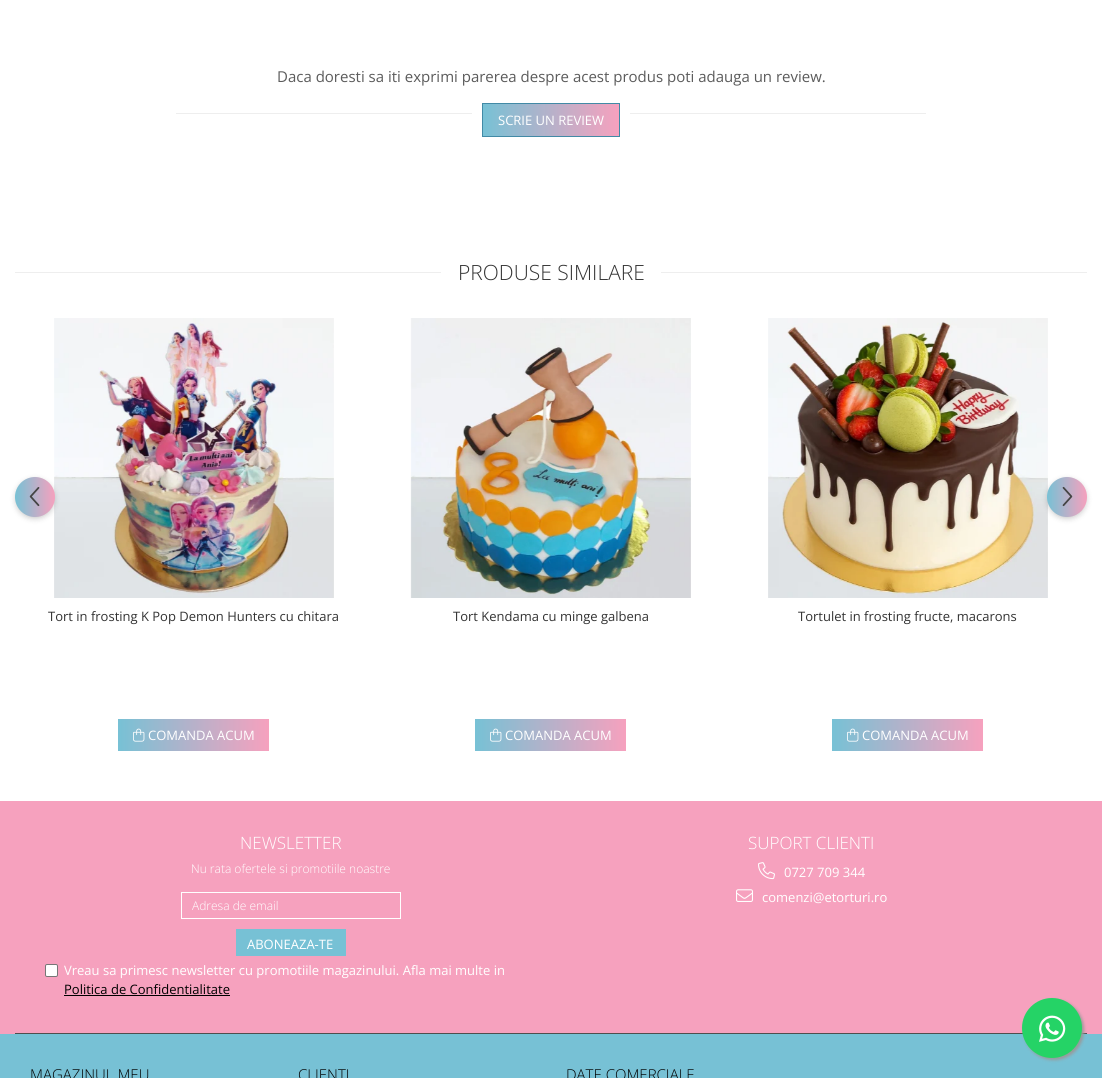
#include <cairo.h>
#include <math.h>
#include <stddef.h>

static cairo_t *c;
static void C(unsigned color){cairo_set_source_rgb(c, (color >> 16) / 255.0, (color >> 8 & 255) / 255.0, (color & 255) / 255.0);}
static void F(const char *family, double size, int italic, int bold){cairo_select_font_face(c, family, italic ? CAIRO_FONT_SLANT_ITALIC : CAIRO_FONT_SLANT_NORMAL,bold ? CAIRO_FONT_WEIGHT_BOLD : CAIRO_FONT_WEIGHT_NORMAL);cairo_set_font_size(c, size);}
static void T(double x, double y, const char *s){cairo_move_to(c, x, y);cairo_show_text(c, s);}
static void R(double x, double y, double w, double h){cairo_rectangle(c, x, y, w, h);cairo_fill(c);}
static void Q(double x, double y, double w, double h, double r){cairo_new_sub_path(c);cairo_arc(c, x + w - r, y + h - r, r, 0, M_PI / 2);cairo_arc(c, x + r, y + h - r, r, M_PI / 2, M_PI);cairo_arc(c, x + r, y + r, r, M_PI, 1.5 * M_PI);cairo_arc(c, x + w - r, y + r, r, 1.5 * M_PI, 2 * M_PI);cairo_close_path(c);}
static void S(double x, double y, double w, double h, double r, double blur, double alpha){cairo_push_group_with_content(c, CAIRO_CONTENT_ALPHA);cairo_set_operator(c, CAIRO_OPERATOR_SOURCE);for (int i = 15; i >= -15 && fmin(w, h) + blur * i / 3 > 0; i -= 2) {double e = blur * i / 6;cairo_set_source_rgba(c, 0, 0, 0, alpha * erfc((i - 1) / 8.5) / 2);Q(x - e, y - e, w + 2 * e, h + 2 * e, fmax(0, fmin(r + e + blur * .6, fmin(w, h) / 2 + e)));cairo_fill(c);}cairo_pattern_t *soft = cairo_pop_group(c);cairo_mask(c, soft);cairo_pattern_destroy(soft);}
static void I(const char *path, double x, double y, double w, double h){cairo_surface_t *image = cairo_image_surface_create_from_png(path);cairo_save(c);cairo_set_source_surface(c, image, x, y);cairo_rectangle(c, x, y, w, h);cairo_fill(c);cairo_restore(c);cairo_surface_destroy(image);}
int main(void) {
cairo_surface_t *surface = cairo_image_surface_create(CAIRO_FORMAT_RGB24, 1102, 1078);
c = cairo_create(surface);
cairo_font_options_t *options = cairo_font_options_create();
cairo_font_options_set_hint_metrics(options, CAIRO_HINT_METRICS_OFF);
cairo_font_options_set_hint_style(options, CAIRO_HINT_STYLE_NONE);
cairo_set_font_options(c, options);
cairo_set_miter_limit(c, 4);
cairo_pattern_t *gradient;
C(0xffffff);
cairo_paint(c);
F("Open Sans",15,0,0);
C(0x5b5b5b);
T(277,82,"Daca doresti sa iti exprimi parerea despre acest produs poti adauga un review.");
C(0xeeeeee);
R(176,113,750,1);
C(0xffffff);
R(472,113,158,1);
gradient = cairo_pattern_create_linear(483,120,619,120);
cairo_pattern_add_color_stop_rgba(gradient,0,0.467,0.757,0.835,1);
cairo_pattern_add_color_stop_rgba(gradient,1,0.965,0.631,0.745,1);
cairo_set_source(c,gradient);
cairo_pattern_destroy(gradient);
R(483,104,136,32);
cairo_rectangle(c,482.5,103.5,137,33);
C(0x428aa6);
cairo_set_line_width(c,1);
cairo_stroke(c);
F("Open Sans",13,0,0);
C(0xffffff);
T(498,125,"SCRIE UN REVIEW");
C(0xeeeeee);
R(15,272,1072,1);
C(0xffffff);
R(441,272,220,1);
F("Open Sans Light",21,0,0);
C(0x333333);
T(458,280,"PRODUSE SIMILARE");
I("3.png",54,318,280,280);
C(0x000000);
S(17,481,36,36,18,3.5,.3);
gradient = cairo_pattern_create_linear(15,497,55,497);
cairo_pattern_add_color_stop_rgba(gradient,0,0.467,0.757,0.835,1);
cairo_pattern_add_color_stop_rgba(gradient,1,0.965,0.631,0.745,1);
cairo_set_source(c,gradient);
cairo_pattern_destroy(gradient);
cairo_arc(c,35,497,20,0,2 * M_PI);
cairo_fill(c);
I("1.png",29,487,11,20);
I("6.png",768,318,280,280);
C(0x000000);
S(1049,481,36,36,18,3.5,.3);
gradient = cairo_pattern_create_linear(1047,497,1087,497);
cairo_pattern_add_color_stop_rgba(gradient,0,0.467,0.757,0.835,1);
cairo_pattern_add_color_stop_rgba(gradient,1,0.965,0.631,0.745,1);
cairo_set_source(c,gradient);
cairo_pattern_destroy(gradient);
cairo_arc(c,1067,497,20,0,2 * M_PI);
cairo_fill(c);
I("2.png",1062,486,11,21);
F("Open Sans",13,0,0);
C(0x333333);
T(48,621,"Tort in frosting K Pop Demon Hunters cu chitara");
gradient = cairo_pattern_create_linear(118,735,269,735);
cairo_pattern_add_color_stop_rgba(gradient,0,0.467,0.757,0.835,1);
cairo_pattern_add_color_stop_rgba(gradient,1,0.965,0.631,0.745,1);
cairo_set_source(c,gradient);
cairo_pattern_destroy(gradient);
R(118,719,151,32);
I("4.png",133,728,12,14);
C(0xffffff);
T(148,740,"COMANDA ACUM");
I("5.png",410,318,281,280);
C(0x333333);
T(453,621,"Tort Kendama cu minge galbena");
gradient = cairo_pattern_create_linear(475,735,626,735);
cairo_pattern_add_color_stop_rgba(gradient,0,0.467,0.757,0.835,1);
cairo_pattern_add_color_stop_rgba(gradient,1,0.965,0.631,0.745,1);
cairo_set_source(c,gradient);
cairo_pattern_destroy(gradient);
R(475,719,151,32);
I("4.png",490,728,12,14);
C(0xffffff);
T(505,740,"COMANDA ACUM");
C(0x333333);
T(798,621,"Tortulet in frosting fructe, macarons");
gradient = cairo_pattern_create_linear(832,735,983,735);
cairo_pattern_add_color_stop_rgba(gradient,0,0.467,0.757,0.835,1);
cairo_pattern_add_color_stop_rgba(gradient,1,0.965,0.631,0.745,1);
cairo_set_source(c,gradient);
cairo_pattern_destroy(gradient);
R(832,719,151,32);
I("4.png",847,728,12,14);
C(0xffffff);
T(862,740,"COMANDA ACUM");
C(0xf6a1be);
R(0,801,1102,233);
C(0x4f4e4e);
R(15,1033,1072,1);
F("Open Sans Light",17,0,0);
C(0xffffff);
T(240,849,"NEWSLETTER");
F("Open Sans Light",12,0,0);
T(191,873,"Nu rata ofertele si promotiile noastre");
cairo_rectangle(c,181.5,892.5,219,26);
cairo_stroke(c);
T(192,910,"Adresa de email");
C(0x77c1d5);
R(236,929,110,27);
F("Open Sans",13,0,0);
C(0xffffff);
T(247,949,"ABONEAZA-TE");
Q(45.5,964.5,12,12,1.5);
cairo_fill_preserve(c);
C(0x767676);
cairo_stroke(c);
C(0xffffff);
T(64,975,"Vreau sa primesc newsletter cu promotiile magazinului. Afla mai multe in");
C(0x000000);
T(64,994,"Politica de Confidentialitate");
R(64,995,166,1);
F("Open Sans Light",17,0,0);
C(0xffffff);
T(748,849,"SUPORT CLIENTI");
I("7.png",758,862,17,18);
F("Open Sans",13,0,0);
T(784,877,"0727 709 344");
I("8.png",736,889,17,13);
T(762,902,"comenzi@etorturi.ro");
C(0x77c1d5);
R(0,1034,1102,44);
F("Open Sans Light",15,0,0);
C(0x000000);
T(30,1080,"MAGAZINUL MEU");
T(298,1080,"CLIENTI");
T(566,1080,"DATE COMERCIALE");
C(0x999999);
S(1024,1000,60,60,30,1.5,1);
C(0x25d366);
cairo_arc(c,1052,1028,30,0,2 * M_PI);
cairo_fill(c);
I("9.png",1039,1015,27,27);
cairo_surface_write_to_png(surface, "o.png");
cairo_font_options_destroy(options);
cairo_destroy(c);
cairo_surface_destroy(surface);
return 0;
}
